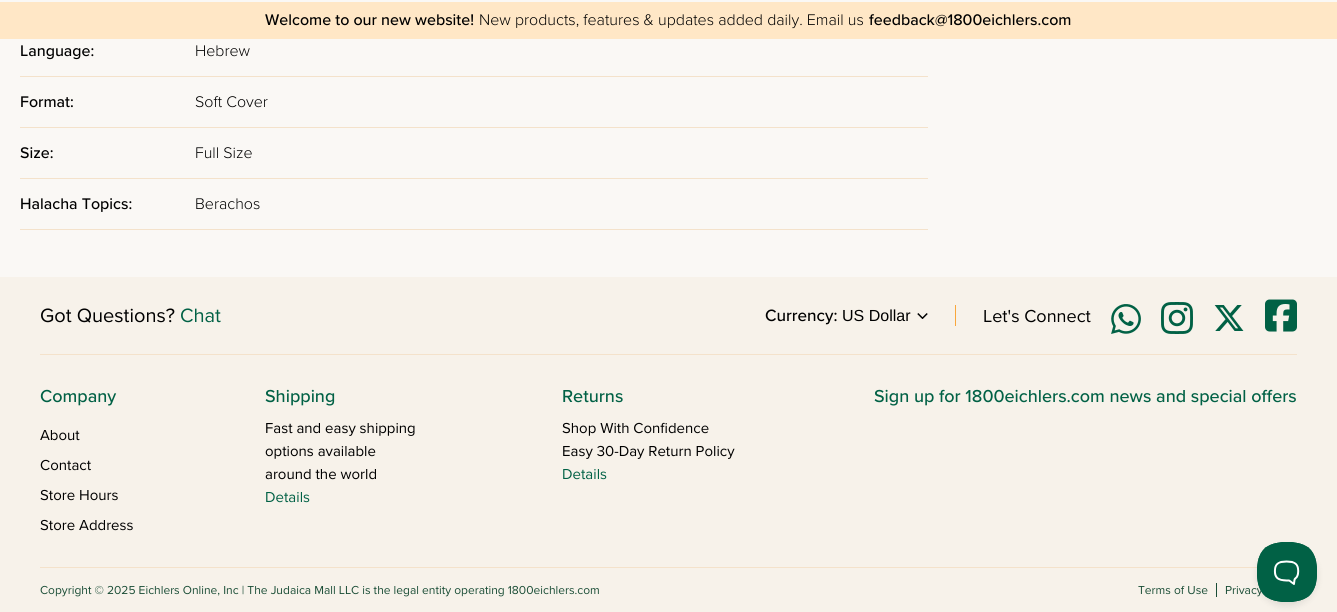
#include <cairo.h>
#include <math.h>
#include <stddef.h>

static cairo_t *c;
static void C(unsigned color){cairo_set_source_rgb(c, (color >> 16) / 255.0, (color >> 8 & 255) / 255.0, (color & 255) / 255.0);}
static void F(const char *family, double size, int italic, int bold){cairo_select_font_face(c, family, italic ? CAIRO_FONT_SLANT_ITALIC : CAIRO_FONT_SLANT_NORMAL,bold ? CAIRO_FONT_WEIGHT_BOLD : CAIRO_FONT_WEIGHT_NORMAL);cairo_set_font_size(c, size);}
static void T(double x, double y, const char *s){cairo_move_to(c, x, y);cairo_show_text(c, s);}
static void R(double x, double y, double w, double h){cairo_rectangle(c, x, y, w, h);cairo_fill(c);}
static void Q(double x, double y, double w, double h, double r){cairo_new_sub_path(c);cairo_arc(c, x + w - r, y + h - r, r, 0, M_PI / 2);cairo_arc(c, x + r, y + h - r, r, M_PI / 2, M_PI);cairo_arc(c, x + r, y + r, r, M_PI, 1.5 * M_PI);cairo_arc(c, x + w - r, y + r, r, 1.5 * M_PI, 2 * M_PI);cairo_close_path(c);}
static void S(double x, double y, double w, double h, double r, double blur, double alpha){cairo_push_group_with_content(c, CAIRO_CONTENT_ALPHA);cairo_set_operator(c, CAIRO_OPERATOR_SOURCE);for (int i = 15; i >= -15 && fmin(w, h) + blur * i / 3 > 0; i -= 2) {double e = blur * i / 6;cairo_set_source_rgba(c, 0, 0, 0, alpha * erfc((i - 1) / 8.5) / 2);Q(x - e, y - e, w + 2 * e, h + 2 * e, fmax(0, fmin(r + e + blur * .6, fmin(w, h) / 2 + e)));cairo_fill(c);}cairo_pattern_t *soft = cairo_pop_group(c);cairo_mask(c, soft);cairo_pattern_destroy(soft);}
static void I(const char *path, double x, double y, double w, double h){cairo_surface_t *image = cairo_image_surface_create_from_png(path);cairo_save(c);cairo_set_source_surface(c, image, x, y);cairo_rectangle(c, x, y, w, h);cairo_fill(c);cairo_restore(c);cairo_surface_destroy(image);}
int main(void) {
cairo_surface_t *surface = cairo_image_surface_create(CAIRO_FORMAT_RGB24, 1337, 612);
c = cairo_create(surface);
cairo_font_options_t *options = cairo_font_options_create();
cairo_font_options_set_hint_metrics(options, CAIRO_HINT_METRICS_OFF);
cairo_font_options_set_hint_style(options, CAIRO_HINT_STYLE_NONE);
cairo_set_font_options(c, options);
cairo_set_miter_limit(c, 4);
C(0xfaf8f5);
cairo_paint(c);
C(0xffe7c6);
R(0,2,1337,37);
F("Proxima Nova Medium",16,0,0);
C(0x000000);
T(265,25,"Welcome to our new website!");
F("Proxima Nova Light",16,0,0);
T(479,25,"New products, features & updates added daily. Email us");
F("Proxima Nova Medium",16,0,0);
T(869,25,"feedback@1800eichlers.com");
C(0xf4e2cb);
R(20,76,908,1);
C(0x000000);
T(20,56,"Language:");
F("Proxima Nova Light",16,0,0);
T(195,56,"Hebrew");
C(0xf4e2cb);
R(20,127,908,1);
F("Proxima Nova Medium",16,0,0);
C(0x000000);
T(20,107,"Format:");
F("Proxima Nova Light",16,0,0);
T(195,107,"Soft Cover");
C(0xf4e2cb);
R(20,178,908,1);
F("Proxima Nova Medium",16,0,0);
C(0x000000);
T(20,158,"Size:");
F("Proxima Nova Light",16,0,0);
T(195,158,"Full Size");
C(0xf4e2cb);
R(20,229,908,1);
F("Proxima Nova Medium",16,0,0);
C(0x000000);
T(20,209,"Halacha Topics:");
F("Proxima Nova Light",16,0,0);
T(195,209,"Berachos");
C(0xf7f2ea);
R(0,277,1337,335);
C(0xf4e2cb);
R(40,354,1257,1);
F("Proxima Nova",20,0,0);
C(0x000000);
T(40,322,"Got Questions?");
C(0x016145);
T(180,322,"Chat");
F("Proxima Nova Medium",17,0,0);
C(0x000000);
T(765,321,"Currency:");
I("1.png",917,313,11,6);
F("Liberation Sans",16,0,0);
T(842,321,"US Dollar");
C(0xf9a73c);
R(955,305,1,21);
F("Proxima Nova",18,0,0);
C(0x000000);
T(983,322,"Let's Connect");
I("2.png",1111,304,30,30);
I("3.png",1161,302,32,32);
I("4.png",1214,305,30,26);
I("5.png",1265,299,32,33);
C(0xf4e2cb);
R(40,567,1218,1);
F("Proxima Nova Medium",18,0,0);
C(0x016145);
T(40,402,"Company");
F("Proxima Nova",15,0,0);
C(0x000000);
T(40,440,"About");
T(40,470,"Contact");
T(40,500,"Store Hours");
T(40,530,"Store Address");
F("Proxima Nova Medium",18,0,0);
C(0x016145);
T(265,402,"Shipping");
F("Proxima Nova",15,0,0);
C(0x000000);
T(265,433,"Fast and easy shipping");
T(265,456,"options available");
T(265,479,"around the world");
C(0x016145);
T(265,502,"Details");
F("Proxima Nova Medium",18,0,0);
T(562,402,"Returns");
F("Proxima Nova",15,0,0);
C(0x000000);
T(562,433,"Shop With Confidence");
T(562,456,"Easy 30-Day Return Policy");
C(0x016145);
T(562,479,"Details");
F("Proxima Nova Medium",18,0,0);
T(874,402,"Sign up for 1800eichlers.com news and special offers");
F("Proxima Nova",12,0,0);
C(0x1a4d36);
T(40,594,"Copyright © 2025 Eichlers Online, Inc | The Judaica Mall LLC is the legal entity operating 1800eichlers.com");
R(1216,583,1,14);
T(1138,594,"Terms of Use");
T(1225,594,"Privacy");
C(0x000000);
S(1257,546,60,60,30,3.5,.1);
I("6.png",1257,542,60,60);
cairo_surface_write_to_png(surface, "o.png");
cairo_font_options_destroy(options);
cairo_destroy(c);
cairo_surface_destroy(surface);
return 0;
}
